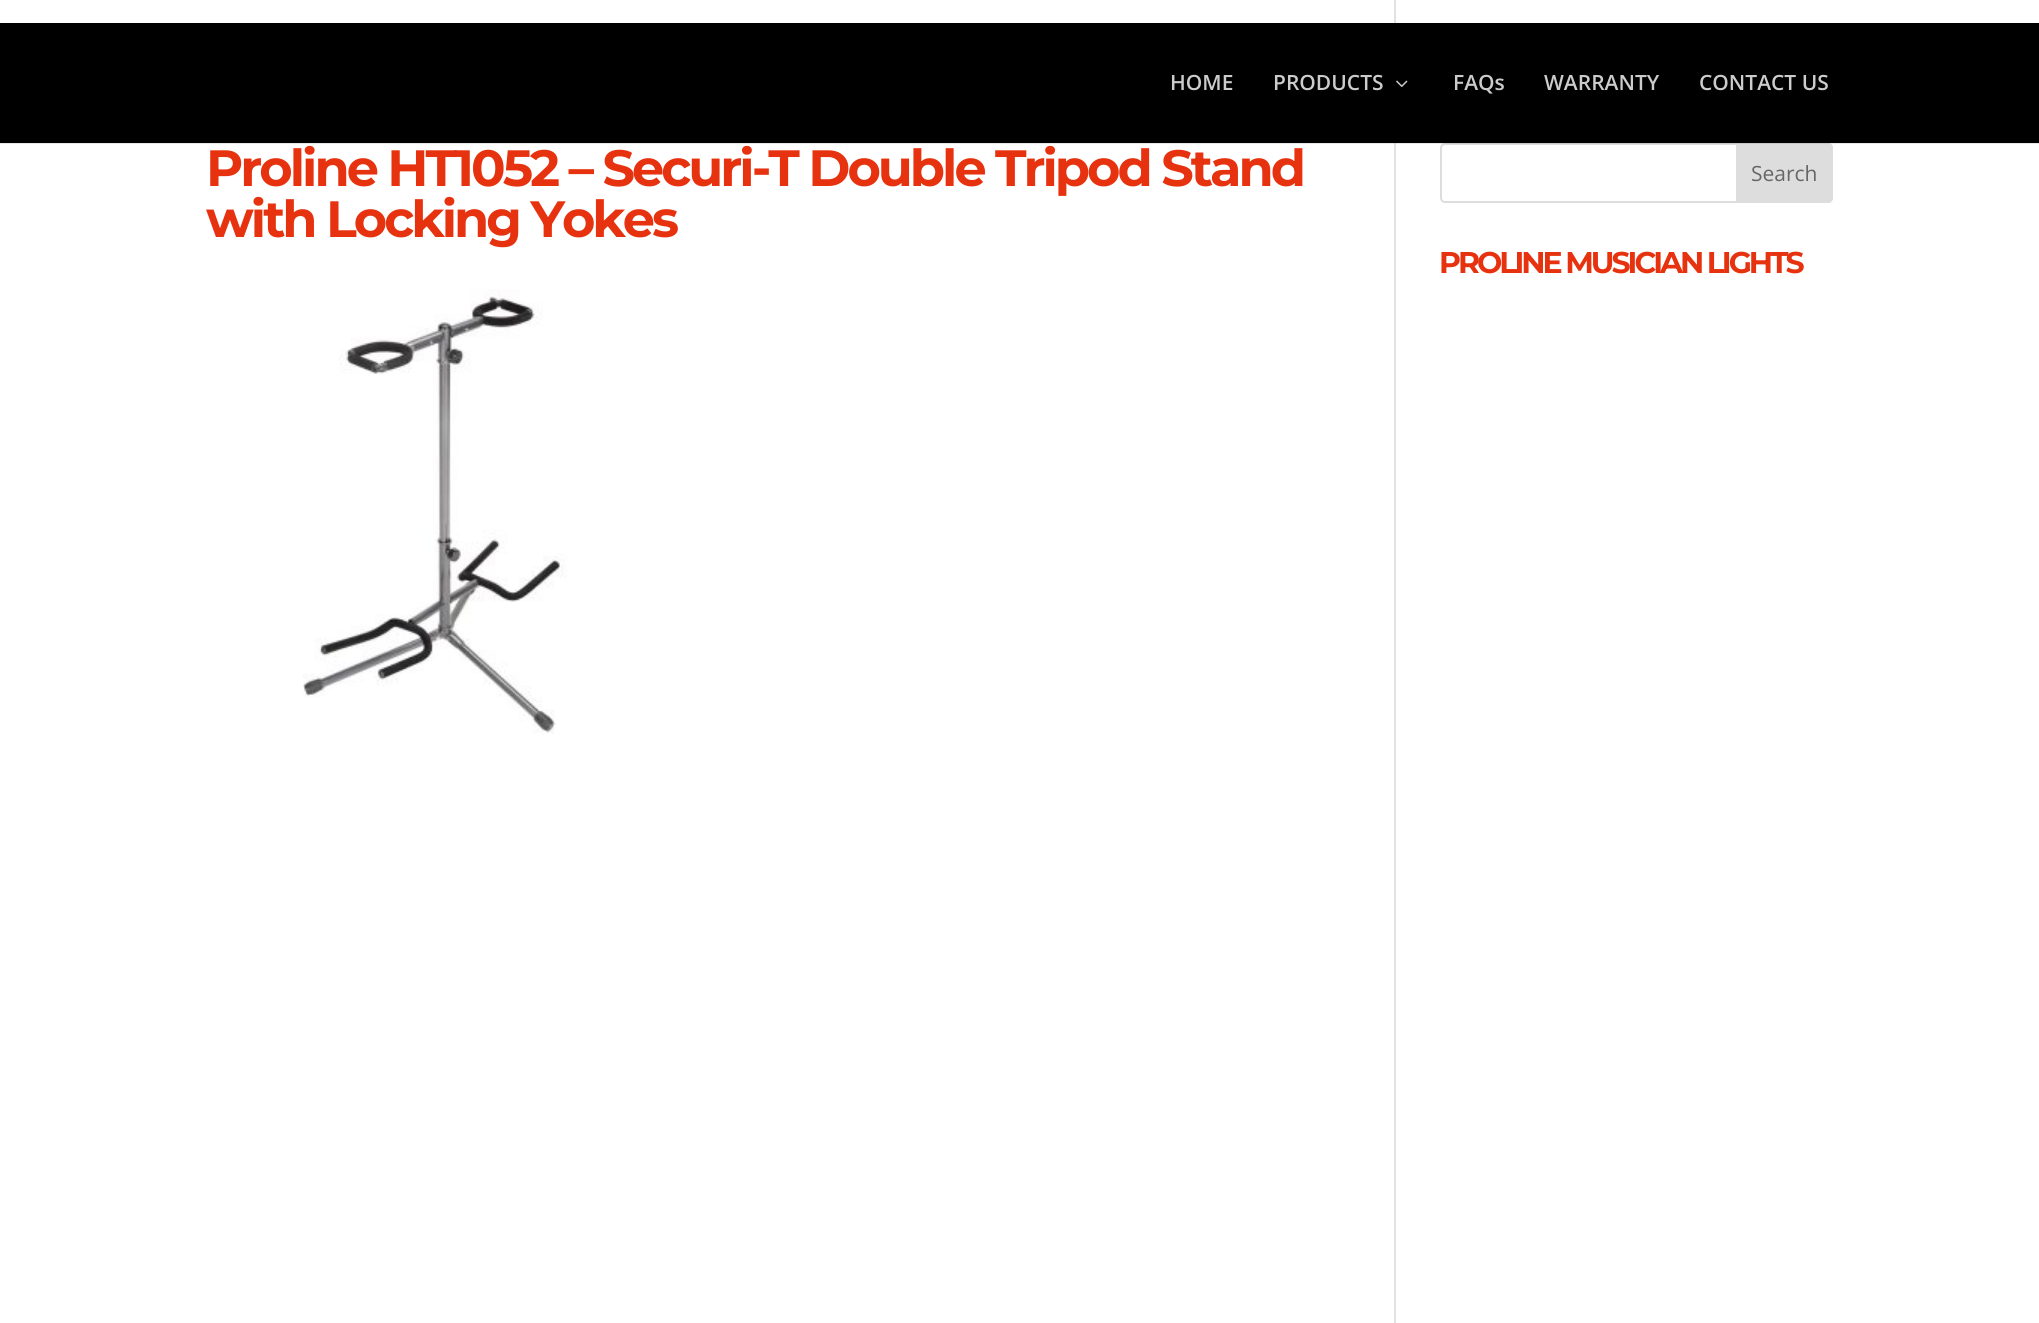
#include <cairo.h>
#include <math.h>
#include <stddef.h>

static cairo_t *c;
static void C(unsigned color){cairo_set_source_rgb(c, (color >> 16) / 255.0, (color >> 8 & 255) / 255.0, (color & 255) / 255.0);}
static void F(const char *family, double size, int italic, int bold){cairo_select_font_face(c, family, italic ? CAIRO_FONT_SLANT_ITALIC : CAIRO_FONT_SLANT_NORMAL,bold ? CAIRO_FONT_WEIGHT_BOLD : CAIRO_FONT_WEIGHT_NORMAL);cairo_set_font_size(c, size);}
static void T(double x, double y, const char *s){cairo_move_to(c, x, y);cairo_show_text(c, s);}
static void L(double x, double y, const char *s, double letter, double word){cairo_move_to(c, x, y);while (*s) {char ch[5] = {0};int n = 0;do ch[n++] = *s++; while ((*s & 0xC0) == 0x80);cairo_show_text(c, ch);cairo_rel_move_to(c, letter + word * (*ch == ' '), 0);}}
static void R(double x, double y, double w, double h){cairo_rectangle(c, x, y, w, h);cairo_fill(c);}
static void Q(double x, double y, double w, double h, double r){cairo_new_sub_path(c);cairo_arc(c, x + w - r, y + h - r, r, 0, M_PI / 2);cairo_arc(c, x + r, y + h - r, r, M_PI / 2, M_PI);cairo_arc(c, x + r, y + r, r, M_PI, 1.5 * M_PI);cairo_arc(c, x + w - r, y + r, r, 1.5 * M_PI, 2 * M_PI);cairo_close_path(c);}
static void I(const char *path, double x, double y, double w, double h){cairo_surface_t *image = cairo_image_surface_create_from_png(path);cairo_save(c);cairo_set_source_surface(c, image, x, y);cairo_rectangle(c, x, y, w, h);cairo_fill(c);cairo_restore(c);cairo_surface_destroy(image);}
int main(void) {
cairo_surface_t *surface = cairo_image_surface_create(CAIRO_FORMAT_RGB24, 2039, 1323);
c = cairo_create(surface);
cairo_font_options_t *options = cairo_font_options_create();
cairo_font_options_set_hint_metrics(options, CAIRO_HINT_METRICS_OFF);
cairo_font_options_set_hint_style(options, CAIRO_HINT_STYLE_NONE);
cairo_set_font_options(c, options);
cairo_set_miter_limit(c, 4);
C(0xffffff);
cairo_paint(c);
C(0xe2e2e2);
R(1394,0,2,1323);
Q(1441,144,391,58,4);
C(0xdddddd);
cairo_stroke(c);
cairo_new_path(c);
cairo_move_to(c,1737,144);
cairo_line_to(c,1828,144);
cairo_curve_to(c,1830,144,1832,146,1832,148);
cairo_line_to(c,1832,198);
cairo_curve_to(c,1832,200,1830,202,1828,202);
cairo_line_to(c,1737,202);
cairo_close_path(c);
cairo_fill_preserve(c);
cairo_stroke(c);
cairo_set_source_rgba(c,0,0,0,0.1);
R(0,143,2039,1);
C(0x000000);
R(0,23,2039,120);
F("Open Sans SemiBold",21,0,0);
C(0xcccccc);
T(1170,90,"HOME");
T(1273,90,"PRODUCTS");
I("1.png",1396,80,12,7);
T(1453,90,"FAQs");
T(1544,90,"WARRANTY");
T(1699,90,"CONTACT US");
F("Montserrat",51,0,1);
C(0xe7320f);
L(206,186,"Proline HT1052 – Securi-T Double Tripod Stand",-3,0);
L(206,237,"with Locking Yokes",-3,0);
I("2.png",303,289,264,445);
F("Open Sans",21,0,0);
C(0x666666);
T(1751,181,"Search");
F("Montserrat",30,0,1);
C(0xe7320f);
L(1439,273,"PROLINE MUSICIAN LIGHTS",-3,0);
cairo_surface_write_to_png(surface, "o.png");
cairo_font_options_destroy(options);
cairo_destroy(c);
cairo_surface_destroy(surface);
return 0;
}
